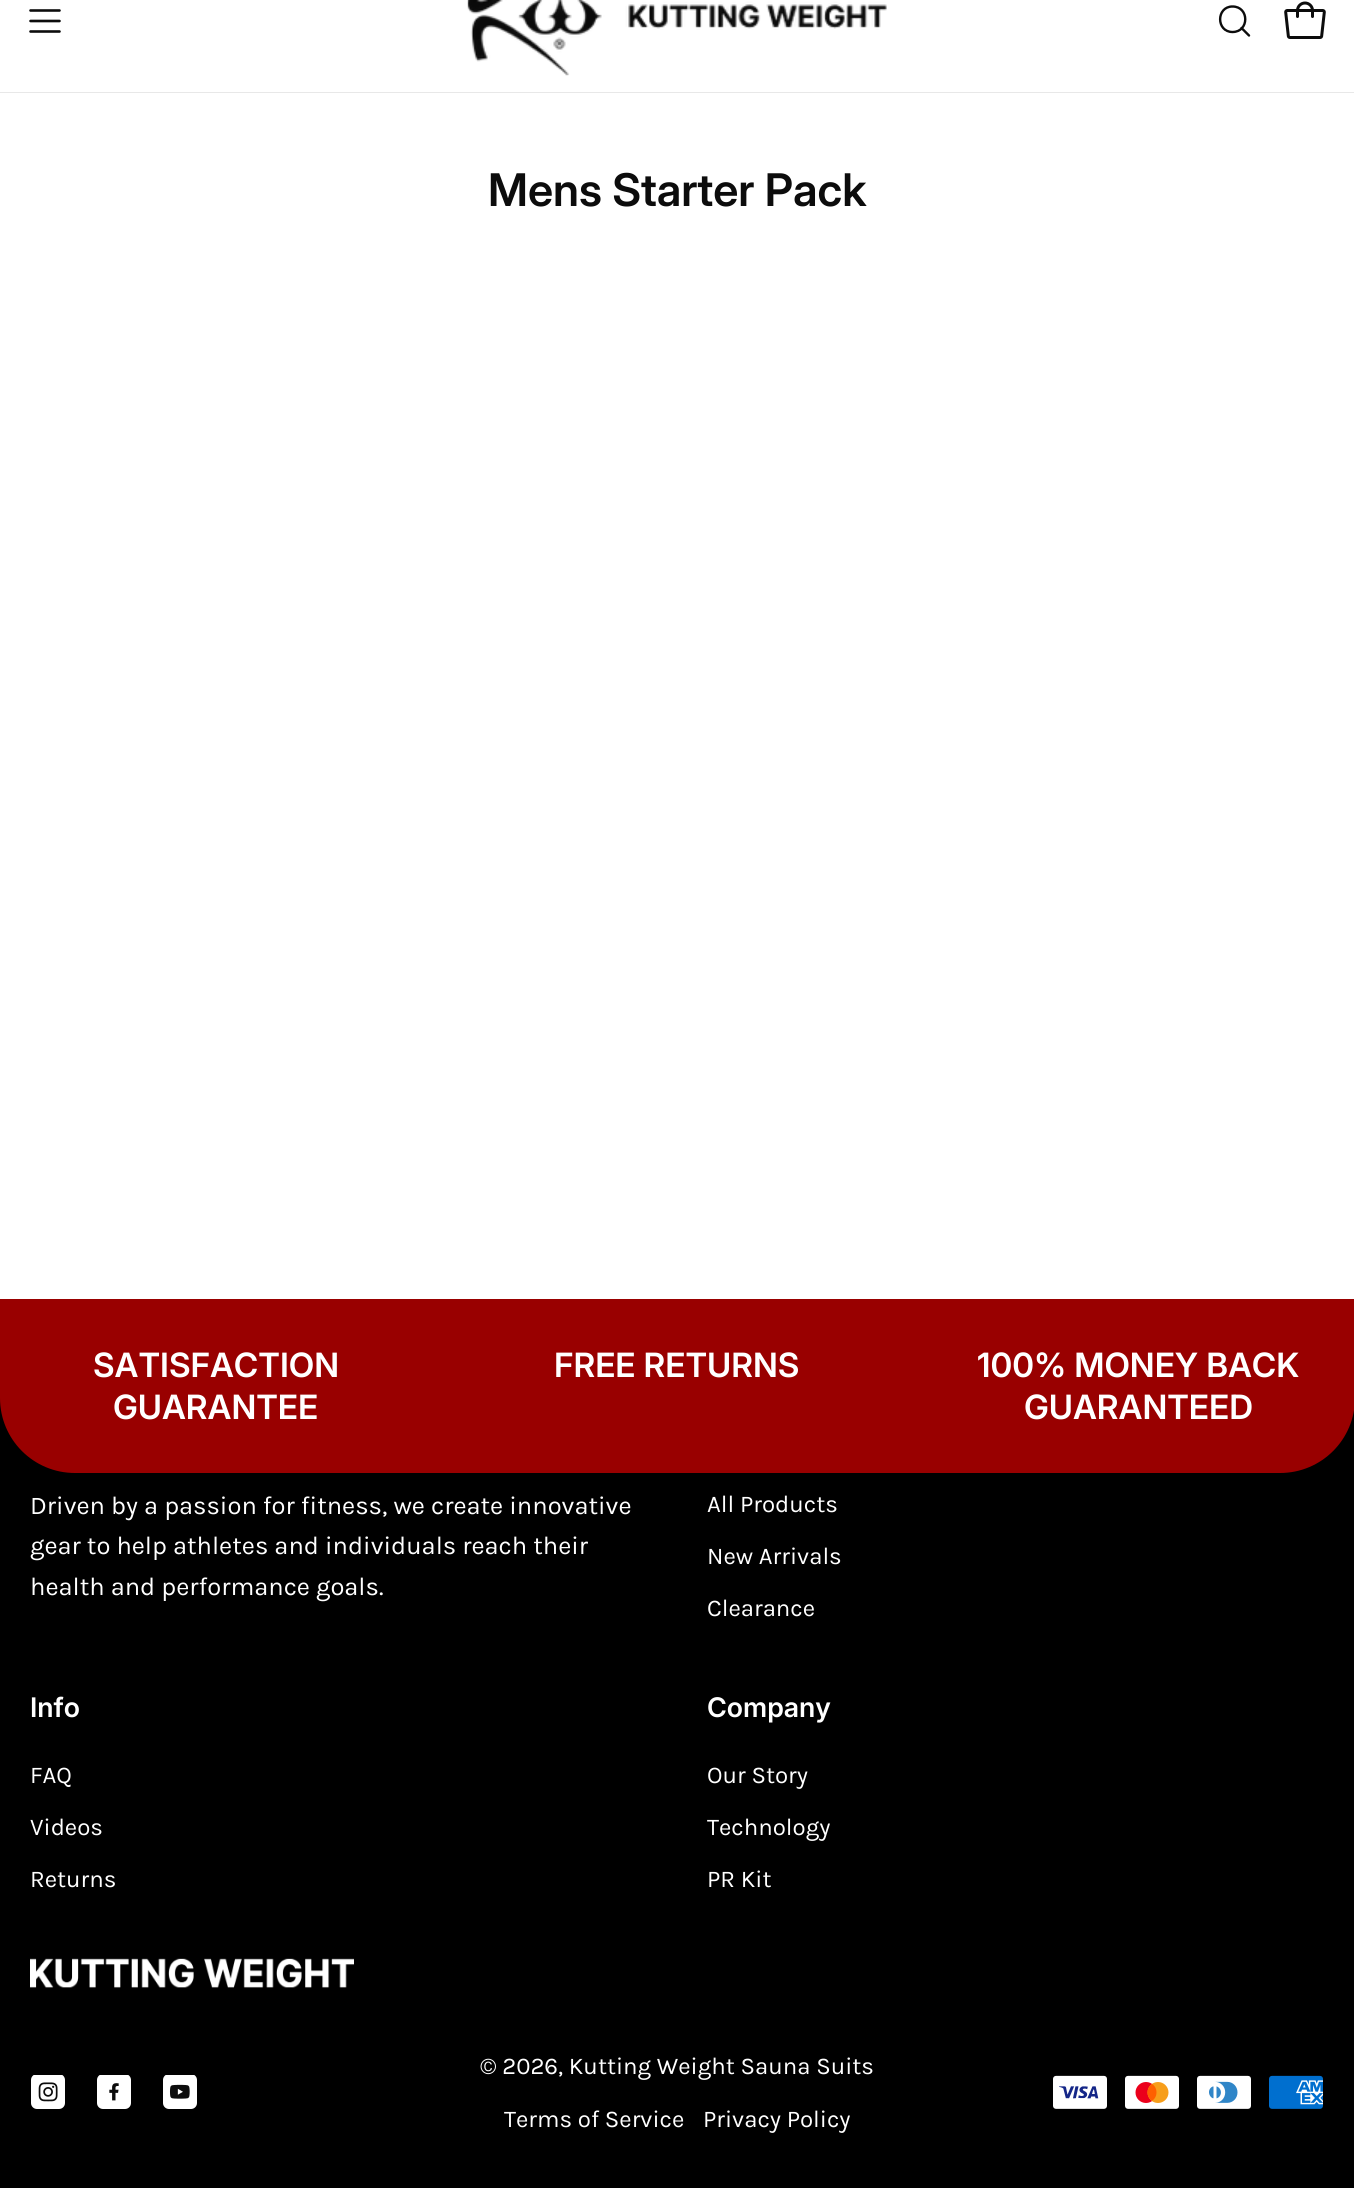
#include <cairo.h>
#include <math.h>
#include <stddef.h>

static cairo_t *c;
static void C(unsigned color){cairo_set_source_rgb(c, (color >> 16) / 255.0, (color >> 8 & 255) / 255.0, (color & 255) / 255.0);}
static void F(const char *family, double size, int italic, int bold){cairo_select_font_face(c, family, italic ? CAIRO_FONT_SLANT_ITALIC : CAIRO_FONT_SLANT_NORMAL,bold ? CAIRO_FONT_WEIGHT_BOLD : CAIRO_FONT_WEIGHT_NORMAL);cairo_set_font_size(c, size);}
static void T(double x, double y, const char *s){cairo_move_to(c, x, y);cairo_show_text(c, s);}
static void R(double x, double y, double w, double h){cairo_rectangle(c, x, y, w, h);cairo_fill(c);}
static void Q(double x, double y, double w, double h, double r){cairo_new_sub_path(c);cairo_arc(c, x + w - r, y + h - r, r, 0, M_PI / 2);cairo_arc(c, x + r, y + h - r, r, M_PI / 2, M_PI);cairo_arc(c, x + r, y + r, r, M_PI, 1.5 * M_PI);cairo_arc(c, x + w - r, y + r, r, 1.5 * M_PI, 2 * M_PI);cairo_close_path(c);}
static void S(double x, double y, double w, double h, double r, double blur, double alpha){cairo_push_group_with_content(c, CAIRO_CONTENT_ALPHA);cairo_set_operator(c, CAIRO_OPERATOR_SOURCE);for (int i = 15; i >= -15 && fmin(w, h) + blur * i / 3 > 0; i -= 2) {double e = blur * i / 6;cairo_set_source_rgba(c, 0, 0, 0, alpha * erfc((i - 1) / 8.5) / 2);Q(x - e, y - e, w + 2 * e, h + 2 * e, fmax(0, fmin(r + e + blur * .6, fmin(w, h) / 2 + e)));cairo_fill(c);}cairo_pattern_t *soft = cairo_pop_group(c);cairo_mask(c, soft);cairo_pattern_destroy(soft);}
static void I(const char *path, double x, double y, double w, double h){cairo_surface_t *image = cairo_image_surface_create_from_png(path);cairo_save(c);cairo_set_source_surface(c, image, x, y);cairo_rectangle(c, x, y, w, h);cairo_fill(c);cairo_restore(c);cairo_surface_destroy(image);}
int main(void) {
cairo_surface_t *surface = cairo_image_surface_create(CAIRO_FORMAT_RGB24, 1354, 2188);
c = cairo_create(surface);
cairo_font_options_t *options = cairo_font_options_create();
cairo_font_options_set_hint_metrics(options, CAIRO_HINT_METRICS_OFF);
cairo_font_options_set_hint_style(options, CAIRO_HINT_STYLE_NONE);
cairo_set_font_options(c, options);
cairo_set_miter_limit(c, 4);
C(0xffffff);
cairo_paint(c);
cairo_new_path(c);
cairo_move_to(c,30.5,21);
cairo_line_to(c,59.5,21);
cairo_move_to(c,30.5,10.5);
cairo_line_to(c,59.5,10.5);
cairo_move_to(c,30.5,31.5);
cairo_line_to(c,59.5,31.5);
C(0x0c0c0c);
cairo_set_line_width(c,2.6);
cairo_set_line_cap(c,CAIRO_LINE_CAP_ROUND);
cairo_set_line_join(c,CAIRO_LINE_JOIN_ROUND);
cairo_stroke(c);
I("1.png",467,0,420,76);
cairo_new_path(c);
cairo_move_to(c,1232.5,32);
cairo_curve_to(c,1249.5,32,1249.5,6.5,1232.5,6.5);
cairo_curve_to(c,1216,6.5,1216,32,1232.5,32);
cairo_close_path(c);
cairo_move_to(c,1241.5,28);
cairo_line_to(c,1249,35.5);
cairo_set_line_width(c,2.4);
cairo_stroke(c);
I("2.png",1284,1,42,38);
C(0xe8e8e8);
cairo_new_path(c);
cairo_move_to(c,0,92);
cairo_line_to(c,0,93);
cairo_line_to(c,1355,93);
cairo_line_to(c,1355,-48);
cairo_line_to(c,1354,-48);
cairo_line_to(c,1354,92);
cairo_close_path(c);
cairo_fill(c);
F("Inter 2 SemiBold",45,0,0);
C(0x0c0c0c);
T(488,206,"Mens Starter Pack");
C(0x000000);
R(0,1398,1354,790);
C(0x000000);
S(15,1352,1325,144,60,19,1);
C(0x990000);
cairo_new_path(c);
cairo_move_to(c,0,1299);
cairo_line_to(c,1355,1299);
cairo_line_to(c,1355,1398);
cairo_curve_to(c,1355,1439.5,1321.5,1473,1280,1473);
cairo_line_to(c,75,1473);
cairo_curve_to(c,33.5,1473,0,1439.5,0,1398);
cairo_close_path(c);
cairo_fill(c);
F("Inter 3 SemiBold",33.5,0,0);
C(0xffffff);
T(93,1377,"SATISFACTION");
T(113,1419,"GUARANTEE");
T(554,1377,"FREE RETURNS");
T(977,1377,"100% MONEY BACK");
T(1024,1419,"GUARANTEED");
F("Karla",25.5,0,0);
T(30,1514,"Driven by a passion for fitness, we create innovative");
T(30,1554,"gear to help athletes and individuals reach their");
T(30,1595,"health and performance goals.");
F("Karla",24,0,0);
T(707,1512,"All Products");
T(707,1564,"New Arrivals");
T(707,1616,"Clearance");
F("Inter SemiBold",27,0,0);
T(30,1717,"Info");
F("Karla",24,0,0);
T(30,1783,"FAQ");
T(30,1835,"Videos");
T(30,1887,"Returns");
F("Inter SemiBold",27,0,0);
T(707,1717,"Company");
F("Karla",24,0,0);
T(707,1783,"Our Story");
T(707,1835,"Technology");
T(707,1887,"PR Kit");
I("3.png",30,1958,324,30);
I("4.png",31,2075,34,34);
I("5.png",97,2075,34,34);
I("6.png",163,2075,34,34);
T(480,2074,"© 2026, Kutting Weight Sauna Suits");
T(504,2127,"Terms of Service");
T(703,2127,"Privacy Policy");
I("7.png",1053,2075,54,34);
I("8.png",1125,2075,54,34);
I("9.png",1197,2075,54,34);
I("10.png",1269,2075,54,34);
cairo_surface_write_to_png(surface, "o.png");
cairo_font_options_destroy(options);
cairo_destroy(c);
cairo_surface_destroy(surface);
return 0;
}
